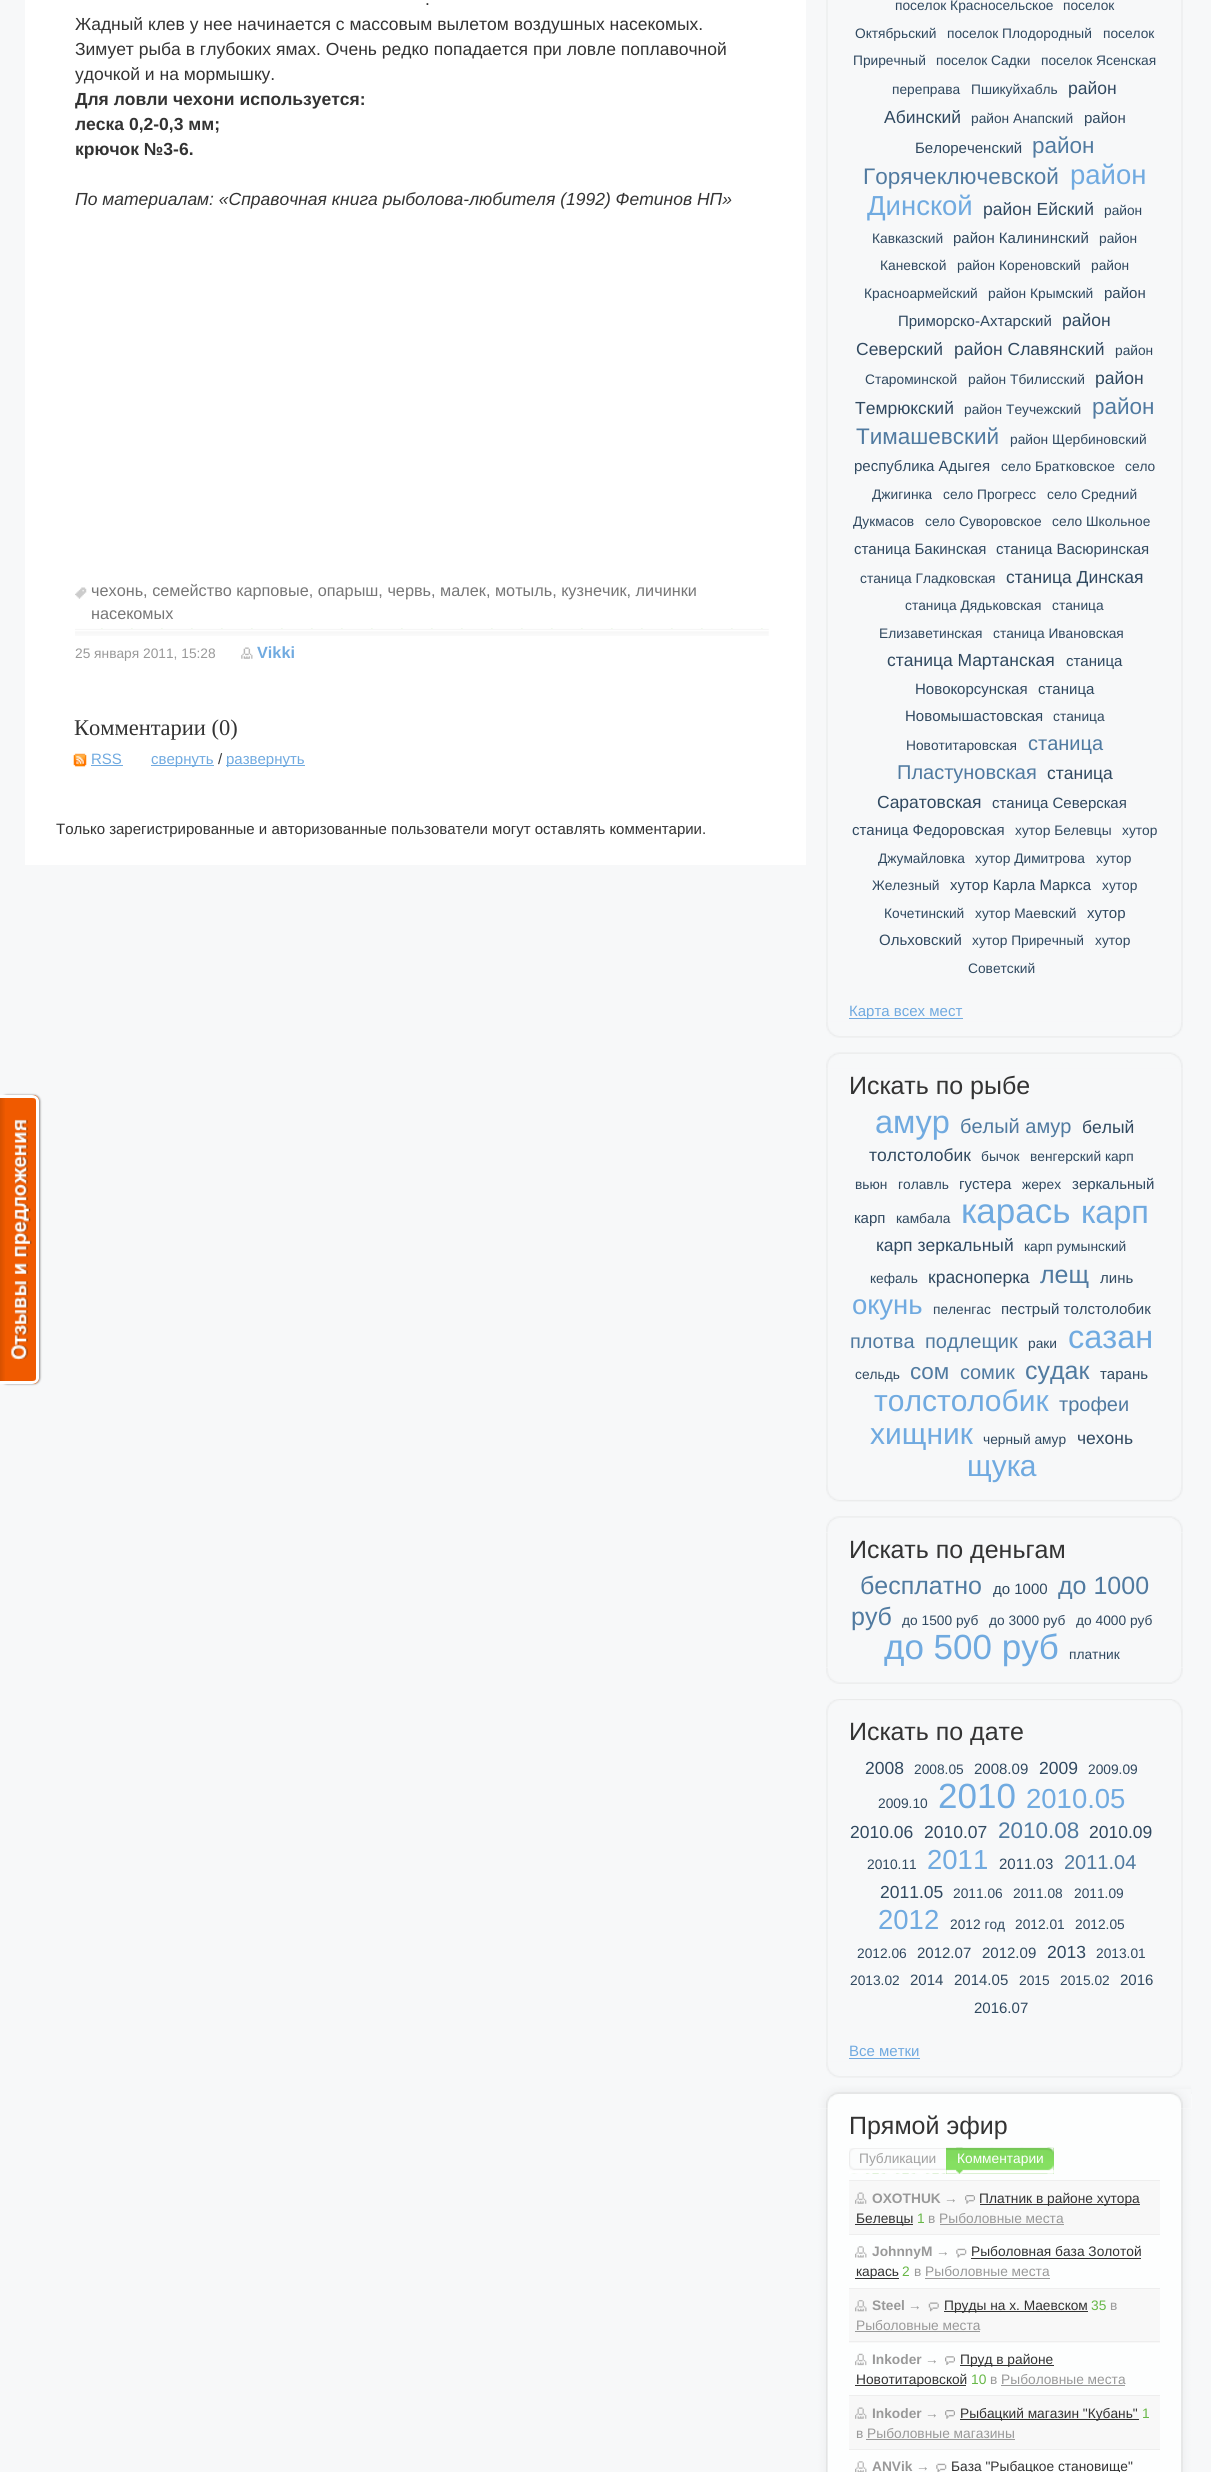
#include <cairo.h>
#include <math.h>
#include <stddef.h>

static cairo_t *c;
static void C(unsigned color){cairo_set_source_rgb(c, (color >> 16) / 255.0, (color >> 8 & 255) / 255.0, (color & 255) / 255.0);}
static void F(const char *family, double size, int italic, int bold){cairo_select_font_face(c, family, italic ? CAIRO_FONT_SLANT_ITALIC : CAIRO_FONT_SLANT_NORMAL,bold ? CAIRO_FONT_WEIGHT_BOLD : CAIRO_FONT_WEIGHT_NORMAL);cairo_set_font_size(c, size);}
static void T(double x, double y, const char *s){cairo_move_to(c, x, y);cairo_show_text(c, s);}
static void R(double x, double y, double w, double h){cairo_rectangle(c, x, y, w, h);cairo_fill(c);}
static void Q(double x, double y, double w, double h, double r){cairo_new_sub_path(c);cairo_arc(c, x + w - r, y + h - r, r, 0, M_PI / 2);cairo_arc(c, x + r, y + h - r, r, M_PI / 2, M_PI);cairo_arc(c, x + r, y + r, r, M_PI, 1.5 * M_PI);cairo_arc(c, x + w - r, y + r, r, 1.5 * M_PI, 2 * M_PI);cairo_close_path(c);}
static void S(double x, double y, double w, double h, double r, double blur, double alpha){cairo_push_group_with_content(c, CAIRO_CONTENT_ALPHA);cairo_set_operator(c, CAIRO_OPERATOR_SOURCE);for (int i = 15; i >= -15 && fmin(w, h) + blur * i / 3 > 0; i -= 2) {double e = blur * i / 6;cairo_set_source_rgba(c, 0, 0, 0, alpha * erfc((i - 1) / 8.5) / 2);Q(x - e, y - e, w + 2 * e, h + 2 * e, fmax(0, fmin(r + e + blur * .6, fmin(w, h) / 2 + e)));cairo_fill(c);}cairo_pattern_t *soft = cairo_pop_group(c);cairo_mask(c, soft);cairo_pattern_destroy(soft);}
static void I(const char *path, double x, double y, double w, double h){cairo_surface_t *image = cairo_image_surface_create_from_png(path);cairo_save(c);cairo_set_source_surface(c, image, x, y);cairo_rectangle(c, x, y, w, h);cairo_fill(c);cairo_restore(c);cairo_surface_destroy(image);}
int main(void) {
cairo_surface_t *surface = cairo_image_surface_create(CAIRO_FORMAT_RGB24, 1211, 2472);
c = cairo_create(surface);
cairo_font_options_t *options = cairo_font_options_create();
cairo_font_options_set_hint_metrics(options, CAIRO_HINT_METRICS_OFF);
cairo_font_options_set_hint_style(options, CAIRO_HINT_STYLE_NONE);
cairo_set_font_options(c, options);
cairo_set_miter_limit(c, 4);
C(0xf7f8f9);
cairo_paint(c);
C(0x888888);
S(1,1095,39,289,6,1,1);
C(0xf05a00);
cairo_new_path(c);
cairo_move_to(c,0,1095);
cairo_line_to(c,33,1095);
cairo_curve_to(c,36.5,1095,39,1097.5,39,1101);
cairo_line_to(c,39,1378);
cairo_curve_to(c,39,1381.5,36.5,1384,33,1384);
cairo_line_to(c,0,1384);
cairo_close_path(c);
cairo_fill(c);
I("1.png",0,1098,5,283);
C(0xffffff);
cairo_set_fill_rule(c,CAIRO_FILL_RULE_EVEN_ODD);
cairo_new_path(c);
cairo_move_to(c,0,1095);
cairo_line_to(c,32,1095);
cairo_curve_to(c,36,1095,39,1098,39,1101);
cairo_line_to(c,39,1378);
cairo_curve_to(c,39,1381,36,1384,32,1384);
cairo_line_to(c,0,1384);
cairo_close_path(c);
cairo_move_to(c,0,1098);
cairo_line_to(c,32,1098);
cairo_curve_to(c,35,1098,36,1099,36,1101);
cairo_line_to(c,36,1378);
cairo_curve_to(c,36,1380,35,1381,32,1381);
cairo_line_to(c,0,1381);
cairo_close_path(c);
cairo_fill(c);
I("2.png",11,1119,21,241);
R(25,0,781,865);
F("Liberation Sans",17.5,0,0);
C(0x333333);
T(425,5,".");
T(75,30,"Жадный клев у нее начинается с массовым вылетом воздушных насекомых.");
T(75,55,"Зимует рыба в глубоких ямах. Очень редко попадается при ловле поплавочной");
T(75,80,"удочкой и на мормышку.");
F("Liberation Sans",17.5,0,1);
T(75,105,"Для ловли чехони используется:");
T(75,130,"леска 0,2-0,3 мм;");
T(75,155,"крючок №3-6.");
F("Liberation Sans",17.5,1,0);
T(75,205,"По материалам: «Справочная книга рыболова-любителя (1992) Фетинов НП»");
I("3.png",75,587,12,12);
F("Liberation Sans",16.25,0,0);
C(0x777777);
T(91,596,"чехонь, семейство карповые, опарыш, червь, малек, мотыль, кузнечик, личинки");
T(91,619,"насекомых");
I("4.png",75,628,694,8);
F("Liberation Sans",13.75,0,0);
C(0x999999);
T(75,658,"25 января 2011, 15:28");
I("5.png",241,647,12,12);
F("Liberation Sans",16.25,0,1);
C(0x70aae0);
T(257,658,"Vikki");
F("Liberation Serif",22.5,0,0);
C(0x333333);
T(74,735,"Комментарии (0)");
I("6.png",73,753,14,14);
F("Liberation Sans",15,0,0);
C(0x70aae0);
T(91,764,"RSS");
R(91,765,32,1);
R(151,765,63,1);
T(151,764,"свернуть");
C(0x333333);
T(218,764,"/");
C(0x70aae0);
R(226,765,79,1);
T(226,764,"развернуть");
C(0x333333);
T(56,834,"Только зарегистрированные и авторизованные пользователи могут оставлять комментарии.");
C(0xeff1f1);
R(826,0,2,1021);
C(0xeff0f1);
R(1181,0,2,1021);
F("Liberation Sans",13.75,0,0);
C(0x304960);
T(895,10,"поселок Красносельское");
T(1063,10,"поселок");
T(855,38,"Октябрьский");
T(947,38,"поселок Плодородный");
T(1103,38,"поселок");
T(853,65,"Приречный");
T(936,65,"поселок Садки");
T(1041,65,"поселок Ясенская");
T(892,94,"переправа");
T(971,94,"Пшикуйхабль");
F("Liberation Sans",17.5,0,0);
T(1068,94,"район");
T(884,123,"Абинский");
F("Liberation Sans",13.75,0,0);
T(971,123,"район Анапский");
F("Liberation Sans",15,0,0);
T(1084,123,"район");
T(915,153,"Белореченский");
F("Liberation Sans",22.5,0,0);
C(0x507aa0);
T(1032,153,"район");
T(863,184,"Горячеключевской");
F("Liberation Sans",27.5,0,0);
C(0x70aae0);
T(1070,184,"район");
T(867,215,"Динской");
F("Liberation Sans",17.5,0,0);
C(0x304960);
T(983,215,"район Ейский");
F("Liberation Sans",13.75,0,0);
T(1104,215,"район");
T(872,243,"Кавказский");
F("Liberation Sans",15,0,0);
T(953,243,"район Калининский");
F("Liberation Sans",13.75,0,0);
T(1099,243,"район");
T(880,270,"Каневской");
T(957,270,"район Кореновский");
T(1091,270,"район");
T(864,298,"Красноармейский");
T(988,298,"район Крымский");
F("Liberation Sans",15,0,0);
T(1104,298,"район");
T(898,326,"Приморско-Ахтарский");
F("Liberation Sans",17.5,0,0);
T(1062,326,"район");
T(856,355,"Северский");
T(954,355,"район Славянский");
F("Liberation Sans",13.75,0,0);
T(1115,355,"район");
T(865,384,"Староминской");
T(968,384,"район Тбилисский");
F("Liberation Sans",17.5,0,0);
T(1095,384,"район");
T(855,414,"Темрюкский");
F("Liberation Sans",13.75,0,0);
T(964,414,"район Теучежский");
F("Liberation Sans",22.5,0,0);
C(0x507aa0);
T(1092,414,"район");
T(856,444,"Тимашевский");
F("Liberation Sans",13.75,0,0);
C(0x304960);
T(1010,444,"район Щербиновский");
F("Liberation Sans",15,0,0);
T(854,471,"республика Адыгея");
F("Liberation Sans",13.75,0,0);
T(1001,471,"село Братковское");
T(1125,471,"село");
T(872,499,"Джигинка");
T(943,499,"село Прогресс");
T(1047,499,"село Средний");
T(853,526,"Дукмасов");
T(925,526,"село Суворовское");
T(1052,526,"село Школьное");
F("Liberation Sans",15,0,0);
T(854,554,"станица Бакинская");
T(996,554,"станица Васюринская");
F("Liberation Sans",13.75,0,0);
T(860,583,"станица Гладковская");
F("Liberation Sans",17.5,0,0);
T(1006,583,"станица Динская");
F("Liberation Sans",13.75,0,0);
T(905,610,"станица Дядьковская");
T(1052,610,"станица");
T(879,638,"Елизаветинская");
T(993,638,"станица Ивановская");
F("Liberation Sans",17.5,0,0);
T(887,666,"станица Мартанская");
F("Liberation Sans",15,0,0);
T(1066,666,"станица");
T(915,694,"Новокорсунская");
T(1038,694,"станица");
T(905,721,"Новомышастовская");
F("Liberation Sans",13.75,0,0);
T(1053,721,"станица");
T(906,750,"Новотитаровская");
F("Liberation Sans",20,0,0);
C(0x507aa0);
T(1028,750,"станица");
T(897,779,"Пластуновская");
F("Liberation Sans",17.5,0,0);
C(0x304960);
T(1047,779,"станица");
T(877,808,"Саратовская");
F("Liberation Sans",15,0,0);
T(992,808,"станица Северская");
T(852,835,"станица Федоровская");
F("Liberation Sans",13.75,0,0);
T(1015,835,"хутор Белевцы");
T(1122,835,"хутор");
T(878,863,"Джумайловка");
T(975,863,"хутор Димитрова");
T(1096,863,"хутор");
T(872,890,"Железный");
F("Liberation Sans",15,0,0);
T(950,890,"хутор Карла Маркса");
F("Liberation Sans",13.75,0,0);
T(1102,890,"хутор");
T(884,918,"Кочетинский");
T(975,918,"хутор Маевский");
F("Liberation Sans",15,0,0);
T(1087,918,"хутор");
T(879,945,"Ольховский");
F("Liberation Sans",13.75,0,0);
T(972,945,"хутор Приречный");
T(1095,945,"хутор");
T(968,973,"Советский");
C(0x70aae0);
R(849,1018,114,1);
F("Liberation Sans",15,0,0);
T(849,1016,"Карта всех мест");
I("7.png",826,1021,365,17);
I("8.png",1172,1021,19,17);
I("9.png",826,1052,365,17);
I("10.png",1171,1052,20,17);
C(0xeff1f1);
R(826,1069,2,416);
C(0xeff0f1);
R(1181,1069,2,416);
F("Liberation Sans",25,0,0);
C(0x333333);
T(849,1094,"Искать по рыбе");
F("Liberation Sans",32.5,0,0);
C(0x70aae0);
T(875,1133,"амур");
F("Liberation Sans",20,0,0);
C(0x507aa0);
T(960,1133,"белый амур");
F("Liberation Sans",17.5,0,0);
C(0x304960);
T(1082,1133,"белый");
T(869,1161,"толстолобик");
F("Liberation Sans",13.75,0,0);
T(981,1161,"бычок");
T(1030,1161,"венгерский карп");
T(855,1189,"вьюн");
T(898,1189,"голавль");
F("Liberation Sans",15,0,0);
T(959,1189,"густера");
F("Liberation Sans",13.75,0,0);
T(1022,1189,"жерех");
F("Liberation Sans",15,0,0);
T(1072,1189,"зеркальный");
T(854,1223,"карп");
F("Liberation Sans",13.75,0,0);
T(896,1223,"камбала");
F("Liberation Sans",35,0,0);
C(0x70aae0);
T(961,1223,"карась");
F("Liberation Sans",32.5,0,0);
T(1081,1223,"карп");
F("Liberation Sans",17.5,0,0);
C(0x304960);
T(876,1251,"карп зеркальный");
F("Liberation Sans",13.75,0,0);
T(1024,1251,"карп румынский");
T(870,1283,"кефаль");
F("Liberation Sans",17.5,0,0);
T(928,1283,"красноперка");
F("Liberation Sans",25,0,0);
C(0x507aa0);
T(1040,1283,"лещ");
F("Liberation Sans",15,0,0);
C(0x304960);
T(1100,1283,"линь");
F("Liberation Sans",27.5,0,0);
C(0x70aae0);
T(852,1314,"окунь");
F("Liberation Sans",13.75,0,0);
C(0x304960);
T(933,1314,"пеленгас");
F("Liberation Sans",15,0,0);
T(1001,1314,"пестрый толстолобик");
F("Liberation Sans",20,0,0);
C(0x507aa0);
T(850,1348,"плотва");
T(925,1348,"подлещик");
F("Liberation Sans",13.75,0,0);
C(0x304960);
T(1028,1348,"раки");
F("Liberation Sans",32.5,0,0);
C(0x70aae0);
T(1068,1348,"сазан");
F("Liberation Sans",13.75,0,0);
C(0x304960);
T(855,1379,"сельдь");
F("Liberation Sans",22.5,0,0);
C(0x507aa0);
T(910,1379,"сом");
F("Liberation Sans",20,0,0);
T(960,1379,"сомик");
F("Liberation Sans",25,0,0);
T(1025,1379,"судак");
F("Liberation Sans",15,0,0);
C(0x304960);
T(1100,1379,"тарань");
F("Liberation Sans",30,0,0);
C(0x70aae0);
T(874,1411,"толстолобик");
F("Liberation Sans",20,0,0);
C(0x507aa0);
T(1059,1411,"трофеи");
F("Liberation Sans",30,0,0);
C(0x70aae0);
T(870,1444,"хищник");
F("Liberation Sans",13.75,0,0);
C(0x304960);
T(983,1444,"черный амур");
F("Liberation Sans",17.5,0,0);
T(1077,1444,"чехонь");
F("Liberation Sans",30,0,0);
C(0x70aae0);
T(967,1476,"щука");
I("11.png",826,1485,346,17);
I("12.png",1172,1485,19,17);
I("13.png",826,1516,365,17);
I("14.png",1172,1516,19,17);
I("15.png",826,1533,2,135);
I("16.png",1181,1533,2,135);
F("Liberation Sans",25,0,0);
C(0x333333);
T(849,1558,"Искать по деньгам");
C(0x507aa0);
T(860,1594,"бесплатно");
F("Liberation Sans",15,0,0);
C(0x304960);
T(993,1594,"до 1000");
F("Liberation Sans",25,0,0);
C(0x507aa0);
T(1058,1594,"до 1000");
T(851,1625,"руб");
F("Liberation Sans",13.75,0,0);
C(0x304960);
T(902,1625,"до 1500 руб");
T(989,1625,"до 3000 руб");
T(1076,1625,"до 4000 руб");
F("Liberation Sans",35,0,0);
C(0x70aae0);
T(884,1659,"до 500 руб");
F("Liberation Sans",13.75,0,0);
C(0x304960);
T(1069,1659,"платник");
I("17.png",826,1668,346,16);
I("18.png",1172,1668,19,16);
I("19.png",826,1699,346,16);
I("20.png",1172,1699,19,16);
C(0xeff1f1);
R(826,1715,2,346);
C(0xeff0f1);
R(1181,1715,2,346);
F("Liberation Sans",25,0,0);
C(0x333333);
T(849,1740,"Искать по дате");
F("Liberation Sans",17.5,0,0);
C(0x304960);
T(865,1774,"2008");
F("Liberation Sans",13.75,0,0);
T(914,1774,"2008.05");
F("Liberation Sans",15,0,0);
T(974,1774,"2008.09");
F("Liberation Sans",17.5,0,0);
T(1039,1774,"2009");
F("Liberation Sans",13.75,0,0);
T(1088,1774,"2009.09");
T(878,1808,"2009.10");
F("Liberation Sans",35,0,0);
C(0x70aae0);
T(938,1808,"2010");
F("Liberation Sans",27.5,0,0);
T(1026,1808,"2010.05");
F("Liberation Sans",17.5,0,0);
C(0x304960);
T(850,1838,"2010.06");
T(924,1838,"2010.07");
F("Liberation Sans",22.5,0,0);
C(0x507aa0);
T(998,1838,"2010.08");
F("Liberation Sans",17.5,0,0);
C(0x304960);
T(1089,1838,"2010.09");
F("Liberation Sans",13.75,0,0);
T(867,1869,"2010.11");
F("Liberation Sans",27.5,0,0);
C(0x70aae0);
T(927,1869,"2011");
F("Liberation Sans",15,0,0);
C(0x304960);
T(999,1869,"2011.03");
F("Liberation Sans",20,0,0);
C(0x507aa0);
T(1064,1869,"2011.04");
F("Liberation Sans",17.5,0,0);
C(0x304960);
T(880,1898,"2011.05");
F("Liberation Sans",13.75,0,0);
T(953,1898,"2011.06");
T(1013,1898,"2011.08");
T(1074,1898,"2011.09");
F("Liberation Sans",27.5,0,0);
C(0x70aae0);
T(878,1929,"2012");
F("Liberation Sans",13.75,0,0);
C(0x304960);
T(950,1929,"2012 год");
T(1015,1929,"2012.01");
T(1075,1929,"2012.05");
T(857,1958,"2012.06");
F("Liberation Sans",15,0,0);
T(917,1958,"2012.07");
T(982,1958,"2012.09");
F("Liberation Sans",17.5,0,0);
T(1047,1958,"2013");
F("Liberation Sans",13.75,0,0);
T(1096,1958,"2013.01");
T(850,1985,"2013.02");
F("Liberation Sans",15,0,0);
T(910,1985,"2014");
T(954,1985,"2014.05");
F("Liberation Sans",13.75,0,0);
T(1019,1985,"2015");
T(1060,1985,"2015.02");
F("Liberation Sans",15,0,0);
T(1120,1985,"2016");
T(974,2013,"2016.07");
C(0x70aae0);
T(849,2056,"Все метки");
R(849,2058,71,1);
I("7.png",826,2061,365,17);
I("8.png",1172,2061,19,17);
C(0xfdfefe);
R(818,2108,373,364);
I("21.png",818,2085,374,24);
I("22.png",1171,2089,20,20);
I("23.png",818,2109,10,363);
I("24.png",1181,2109,10,363);
F("Liberation Sans",25,0,0);
C(0x333333);
T(849,2134,"Прямой эфир");
I("25.png",849,2148,97,26);
I("26.png",849,2148,6,26);
F("Liberation Sans",13.75,0,0);
C(0xa2a2a2);
T(859,2163,"Публикации");
C(0x81da5e);
R(946,2148,108,26);
I("27.png",946,2147,108,27);
I("28.png",956,2147,7,27);
C(0xffffff);
T(957,2163,"Комментарии");
I("29.png",1047,2147,7,27);
C(0xf8f8f8);
R(849,2181,311,53);
C(0xeeeeee);
R(849,2180,311,1);
R(849,2234,311,1);
I("30.png",855,2192,12,12);
F("Liberation Sans",13.75,0,1);
C(0x999999);
T(872,2203,"OXOTHUK");
F("Liberation Sans",13.75,0,0);
T(944,2203,"→");
I("31.png",965,2195,10,9);
C(0x333333);
R(980,2204,160,1);
T(979,2203,"Платник в районе хутора");
R(855,2224,58,1);
T(856,2223,"Белевцы");
C(0x66b746);
T(917,2223,"1");
C(0x999999);
T(928,2223,"в Рыболовные места");
R(940,2224,124,1);
I("32.png",855,2246,12,12);
F("Liberation Sans",13.75,0,1);
T(872,2256,"JohnnyM");
F("Liberation Sans",13.75,0,0);
T(936,2256,"→");
I("33.png",956,2248,11,10);
C(0x333333);
T(971,2256,"Рыболовная база Золотой");
R(971,2258,170,1);
R(855,2278,44,1);
T(856,2276,"карась");
C(0x66b746);
T(902,2276,"2");
C(0x999999);
T(914,2276,"в Рыболовные места");
R(925,2278,125,1);
C(0xf8f8f8);
R(849,2289,311,54);
C(0xeeeeee);
R(849,2288,311,1);
R(849,2341,311,1);
I("34.png",855,2300,12,12);
F("Liberation Sans",13.75,0,1);
C(0x999999);
T(872,2310,"Steel");
F("Liberation Sans",13.75,0,0);
T(908,2310,"→");
I("35.png",928,2302,11,10);
C(0x333333);
R(944,2311,144,1);
T(944,2310,"Пруды на х. Маевском");
C(0x66b746);
T(1091,2310,"35");
C(0x999999);
T(1110,2310,"в");
T(856,2330,"Рыболовные места");
R(855,2331,125,1);
I("36.png",855,2353,12,13);
F("Liberation Sans",13.75,0,1);
T(872,2364,"Inkoder");
F("Liberation Sans",13.75,0,0);
T(925,2364,"→");
I("37.png",945,2356,10,9);
C(0x333333);
R(960,2365,94,1);
T(960,2364,"Пруд в районе");
R(855,2385,111,1);
T(856,2384,"Новотитаровской");
C(0x66b746);
T(971,2384,"10");
C(0x999999);
T(990,2384,"в Рыболовные места");
R(1001,2385,124,1);
C(0xf8f8f8);
R(849,2396,311,53);
C(0xeeeeee);
R(849,2395,311,1);
R(849,2449,311,1);
I("38.png",855,2407,12,12);
F("Liberation Sans",13.75,0,1);
C(0x999999);
T(872,2418,"Inkoder");
F("Liberation Sans",13.75,0,0);
T(925,2418,"→");
I("31.png",945,2410,10,9);
C(0x333333);
R(960,2419,179,1);
T(960,2418,"Рыбацкий магазин \"Кубань\"");
C(0x66b746);
T(1142,2418,"1");
C(0x999999);
T(856,2438,"в Рыболовные магазины");
R(866,2439,149,1);
I("39.png",855,2461,12,11);
F("Liberation Sans",13.75,0,1);
T(872,2471,"ANVik");
F("Liberation Sans",13.75,0,0);
T(916,2471,"→");
I("40.png",936,2463,11,9);
C(0x333333);
T(951,2471,"База \"Рыбацкое становище\"");
cairo_surface_write_to_png(surface, "o.png");
cairo_font_options_destroy(options);
cairo_destroy(c);
cairo_surface_destroy(surface);
return 0;
}
